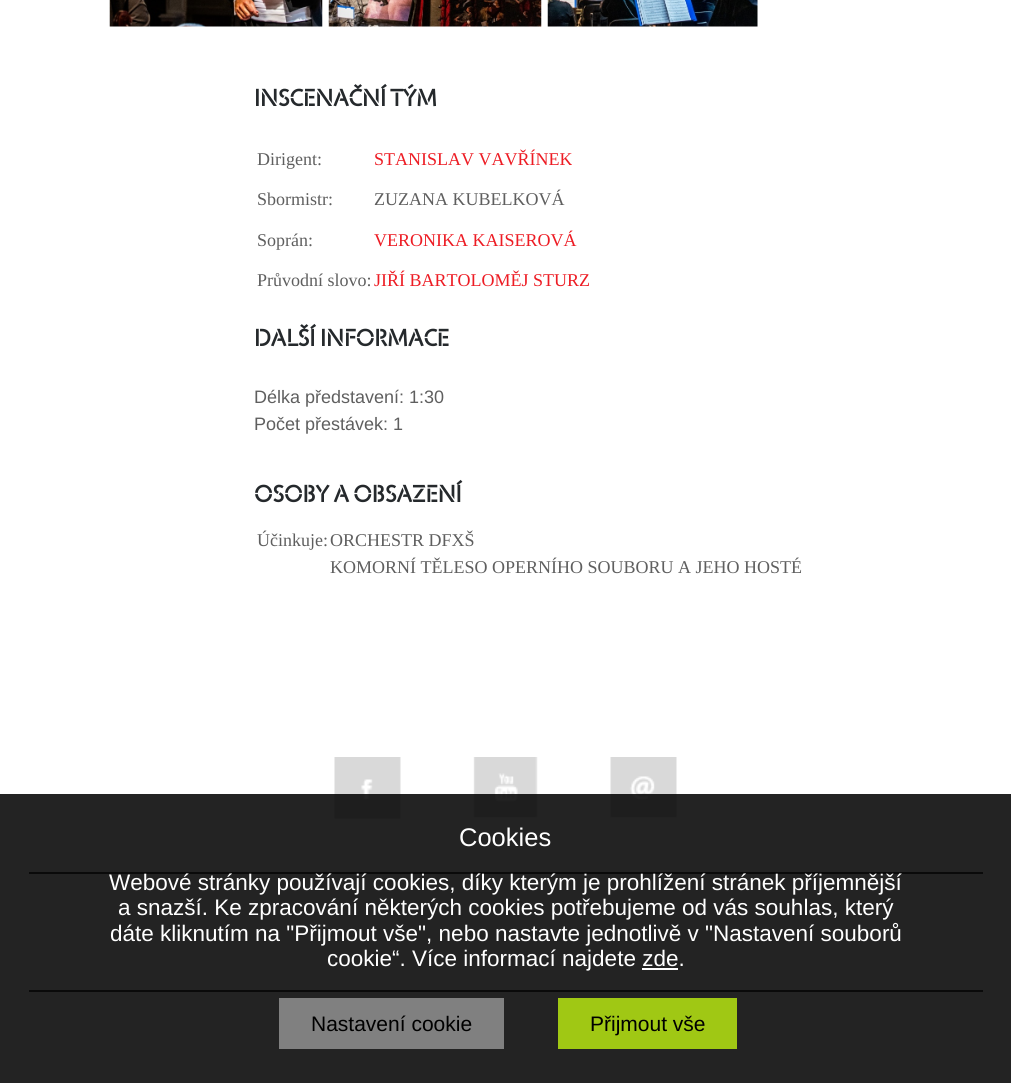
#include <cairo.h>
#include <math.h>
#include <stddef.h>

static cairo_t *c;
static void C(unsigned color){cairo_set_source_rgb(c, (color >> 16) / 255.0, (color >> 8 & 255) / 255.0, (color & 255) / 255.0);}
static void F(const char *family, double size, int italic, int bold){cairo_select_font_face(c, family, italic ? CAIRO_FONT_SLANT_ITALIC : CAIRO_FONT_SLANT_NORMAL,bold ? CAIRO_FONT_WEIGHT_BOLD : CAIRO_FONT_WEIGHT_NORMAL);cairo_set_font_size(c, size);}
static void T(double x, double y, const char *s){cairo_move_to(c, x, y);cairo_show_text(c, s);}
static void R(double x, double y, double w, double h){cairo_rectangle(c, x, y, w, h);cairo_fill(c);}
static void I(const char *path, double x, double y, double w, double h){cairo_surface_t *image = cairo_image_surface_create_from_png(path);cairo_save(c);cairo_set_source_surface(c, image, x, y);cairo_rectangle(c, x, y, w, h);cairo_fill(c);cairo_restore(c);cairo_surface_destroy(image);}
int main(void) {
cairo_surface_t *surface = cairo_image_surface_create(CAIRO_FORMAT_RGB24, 1011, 1083);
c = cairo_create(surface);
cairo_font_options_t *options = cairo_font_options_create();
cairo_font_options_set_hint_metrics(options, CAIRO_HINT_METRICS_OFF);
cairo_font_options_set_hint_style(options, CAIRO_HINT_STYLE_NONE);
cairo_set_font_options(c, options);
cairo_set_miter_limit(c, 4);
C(0xffffff);
cairo_paint(c);
I("1.png",109,0,214,27);
I("2.png",328,0,214,27);
I("3.png",547,0,211,27);
F("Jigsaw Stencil",24,0,1);
C(0x25292c);
T(254,106,"INSCENAČNÍ TÝM");
F("Liberation Serif",18,0,0);
C(0x5f5f5f);
T(257,165,"Dirigent:");
C(0xed1c24);
T(374,165,"STANISLAV VAVŘÍNEK");
C(0x5f5f5f);
T(257,205,"Sbormistr:");
T(374,205,"ZUZANA KUBELKOVÁ");
T(257,246,"Soprán:");
C(0xed1c24);
T(374,246,"VERONIKA KAISEROVÁ");
C(0x5f5f5f);
T(257,286,"Průvodní slovo:");
C(0xed1c24);
T(374,286,"JIŘÍ BARTOLOMĚJ STURZ");
F("Jigsaw Stencil",24,0,1);
C(0x25292c);
T(254,346,"DALŠÍ INFORMACE");
F("Liberation Sans",18,0,0);
C(0x5f5f5f);
T(254,403,"Délka představení: 1:30");
T(254,430,"Počet přestávek: 1");
F("Jigsaw Stencil",24,0,1);
C(0x25292c);
T(254,502,"OSOBY A OBSAZENÍ");
F("Liberation Serif",18,0,0);
C(0x5f5f5f);
T(257,546,"Účinkuje:");
T(330,546,"ORCHESTR DFXŠ");
T(330,573,"KOMORNÍ TĚLESO OPERNÍHO SOUBORU A JEHO HOSTÉ");
I("4.png",334,757,67,62);
I("5.png",473,757,65,61);
I("6.png",610,757,67,61);
C(0x484848);
R(29,872,954,2);
R(29,990,954,2);
cairo_set_source_rgba(c,0,0,0,0.86);
R(0,794,1011,289);
F("Liberation Sans",25.5,0,0);
C(0xffffff);
T(459,846,"Cookies");
F("Liberation Sans",22.5,0,0);
T(109,890,"Webové stránky používají cookies, díky kterým je prohlížení stránek příjemnější");
T(118,915,"a snazší. Ke zpracování některých cookies potřebujeme od vás souhlas, který");
T(110,941,"dáte kliknutím na \"Přijmout vše\", nebo nastavte jednotlivě v \"Nastavení souborů");
T(327,966,"cookie“. Více informací najdete zde.");
R(642,968,36,2);
C(0x808080);
R(279,998,225,51);
F("Liberation Sans",21,0,0);
C(0x000000);
T(311,1031,"Nastavení cookie");
C(0xa0c814);
R(558,998,179,51);
C(0x000000);
T(590,1031,"Přijmout vše");
cairo_surface_write_to_png(surface, "o.png");
cairo_font_options_destroy(options);
cairo_destroy(c);
cairo_surface_destroy(surface);
return 0;
}
